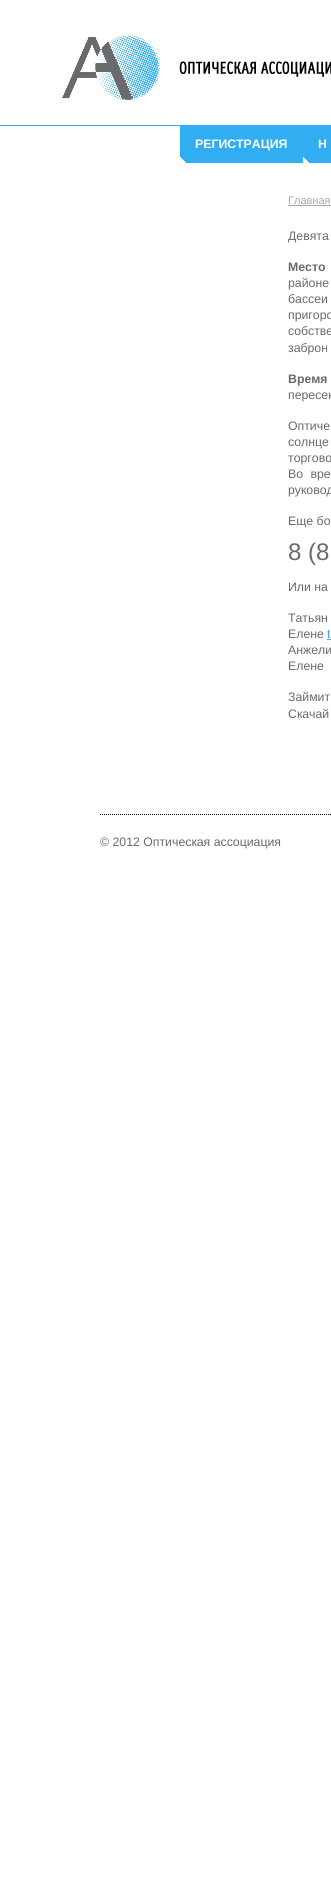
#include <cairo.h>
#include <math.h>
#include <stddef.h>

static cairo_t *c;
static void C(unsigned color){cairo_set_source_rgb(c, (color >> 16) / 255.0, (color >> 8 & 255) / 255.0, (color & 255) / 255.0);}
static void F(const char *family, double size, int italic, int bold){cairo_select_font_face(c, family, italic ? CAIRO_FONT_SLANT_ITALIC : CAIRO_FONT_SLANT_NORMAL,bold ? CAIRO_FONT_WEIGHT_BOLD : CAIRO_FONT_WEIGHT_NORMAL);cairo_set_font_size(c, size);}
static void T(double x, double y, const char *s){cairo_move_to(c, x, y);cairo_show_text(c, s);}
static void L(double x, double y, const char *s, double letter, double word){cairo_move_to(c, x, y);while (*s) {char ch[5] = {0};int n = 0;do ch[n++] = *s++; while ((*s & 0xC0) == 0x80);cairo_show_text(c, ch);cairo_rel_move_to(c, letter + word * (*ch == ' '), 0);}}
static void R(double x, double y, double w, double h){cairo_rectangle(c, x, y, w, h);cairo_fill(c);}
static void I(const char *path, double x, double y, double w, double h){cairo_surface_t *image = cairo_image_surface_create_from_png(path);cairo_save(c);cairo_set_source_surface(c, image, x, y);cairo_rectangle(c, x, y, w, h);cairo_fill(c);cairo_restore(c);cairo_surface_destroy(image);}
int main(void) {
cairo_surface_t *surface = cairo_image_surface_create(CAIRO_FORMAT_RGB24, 331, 1895);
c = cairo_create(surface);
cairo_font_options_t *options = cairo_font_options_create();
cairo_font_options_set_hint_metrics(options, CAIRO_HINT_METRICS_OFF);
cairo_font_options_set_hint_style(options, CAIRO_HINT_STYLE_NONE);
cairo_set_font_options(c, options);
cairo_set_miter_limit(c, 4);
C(0xffffff);
cairo_paint(c);
I("1.png",62,35,269,65);
C(0x31aef1);
R(0,125,331,1);
R(180,126,151,37);
I("2.png",180,157,6,6);
F("Liberation Sans",12.3,0,1);
C(0xffffff);
T(195,148,"РЕГИСТРАЦИЯ");
I("2.png",303,157,6,6);
T(318,148,"Н");
F("Liberation Sans",11,0,0);
C(0xa8a8a8);
T(288,204,"Главная");
R(288,205,43,1);
F("Liberation Sans",12.3,0,0);
C(0x6a6a6a);
T(288,240,"Девята");
F("Liberation Sans",12.3,0,1);
L(288,271,"Место",0,2);
F("Liberation Sans",12.3,0,0);
L(288,287,"районе",0,3);
L(288,303,"бассеи",0,7);
T(288,319,"пригоро");
L(288,335,"собстве",0,7);
T(288,352,"заброн");
F("Liberation Sans",12.3,0,1);
L(288,383,"Время",0,7);
F("Liberation Sans",12.3,0,0);
T(288,399,"пересек");
L(288,430,"Оптиче",0,1);
L(288,446,"солнце",0,6);
T(288,462,"торгово");
L(288,478,"Во вре",0,4);
T(288,494,"руковод");
T(288,525,"Еще бо");
F("Liberation Sans",24,0,0);
T(288,560,"8 (8");
F("Liberation Sans",12.3,0,0);
T(288,591,"Или на");
T(288,622,"Татьян");
T(288,638,"Елене");
C(0x37a4dc);
T(327,638,"t");
R(327,639,4,1);
C(0x6a6a6a);
T(288,654,"Анжели");
T(288,670,"Елене");
T(288,701,"Займит");
T(288,718,"Скачай");
cairo_new_path(c);
cairo_move_to(c,100,814.5);
cairo_line_to(c,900,814.5);
C(0x000000);
cairo_set_line_width(c,1);
cairo_set_dash(c,(double[]){1,1},2,0);
cairo_stroke(c);
C(0x6a6a6a);
T(100,846,"© 2012 Оптическая ассоциация");
cairo_surface_write_to_png(surface, "o.png");
cairo_font_options_destroy(options);
cairo_destroy(c);
cairo_surface_destroy(surface);
return 0;
}
